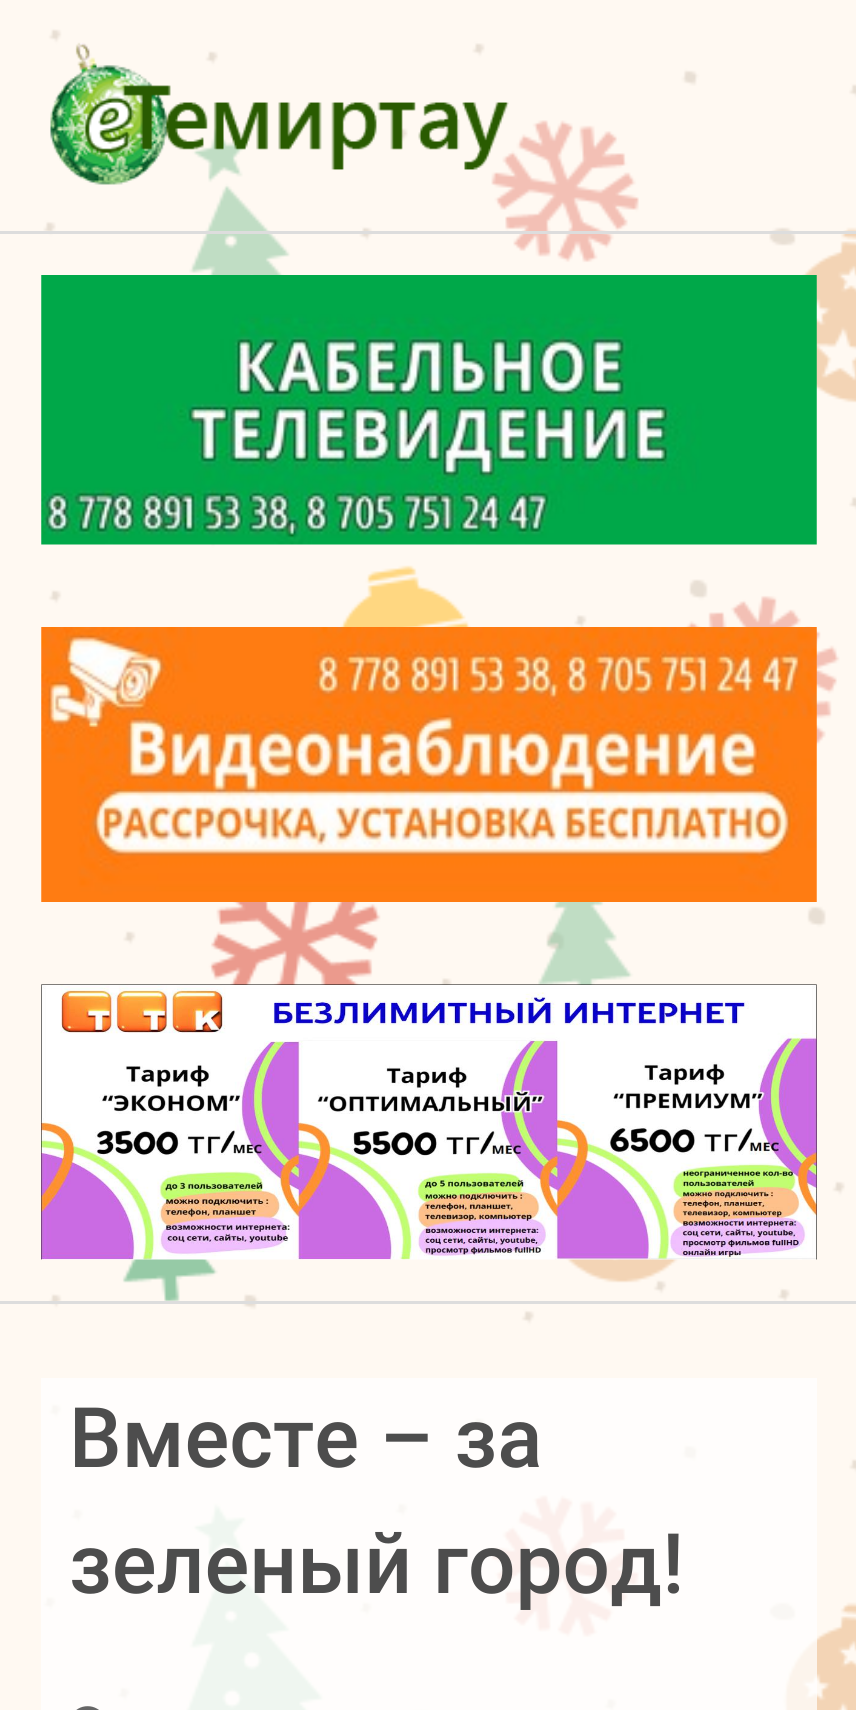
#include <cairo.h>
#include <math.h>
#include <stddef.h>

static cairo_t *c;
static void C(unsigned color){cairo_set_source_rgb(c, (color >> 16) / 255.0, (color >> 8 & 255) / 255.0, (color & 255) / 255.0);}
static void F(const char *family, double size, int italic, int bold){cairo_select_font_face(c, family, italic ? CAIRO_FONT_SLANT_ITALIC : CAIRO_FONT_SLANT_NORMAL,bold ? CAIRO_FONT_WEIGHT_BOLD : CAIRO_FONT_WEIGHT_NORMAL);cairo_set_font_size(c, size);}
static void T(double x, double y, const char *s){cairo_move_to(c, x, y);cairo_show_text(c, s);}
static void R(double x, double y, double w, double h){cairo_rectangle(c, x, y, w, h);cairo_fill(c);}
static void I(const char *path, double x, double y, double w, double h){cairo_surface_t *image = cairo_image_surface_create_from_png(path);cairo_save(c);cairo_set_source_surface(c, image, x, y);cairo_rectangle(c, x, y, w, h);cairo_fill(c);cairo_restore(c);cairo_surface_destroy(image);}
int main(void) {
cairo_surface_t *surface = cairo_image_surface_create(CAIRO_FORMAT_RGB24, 856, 1710);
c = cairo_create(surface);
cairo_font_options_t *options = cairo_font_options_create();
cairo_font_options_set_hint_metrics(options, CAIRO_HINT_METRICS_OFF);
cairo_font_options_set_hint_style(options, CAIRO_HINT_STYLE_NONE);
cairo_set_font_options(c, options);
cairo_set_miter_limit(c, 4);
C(0xffffff);
cairo_paint(c);
I("1.png",0,0,856,1710);
I("2.png",50,42,459,143);
C(0xdddddd);
R(0,231,856,3);
R(0,1301,856,3);
I("3.png",41,275,776,270);
I("4.png",41,627,776,275);
I("5.png",41,984,776,276);
cairo_set_source_rgba(c,1,1,1,0.74);
R(41,1378,776,332);
F("Roboto Medium",83.5,0,0);
C(0x4d4d4d);
T(69,1467,"Вместе – за");
T(69,1593,"зеленый город!");
I("6.png",76,1706,23,4);
cairo_surface_write_to_png(surface, "o.png");
cairo_font_options_destroy(options);
cairo_destroy(c);
cairo_surface_destroy(surface);
return 0;
}
